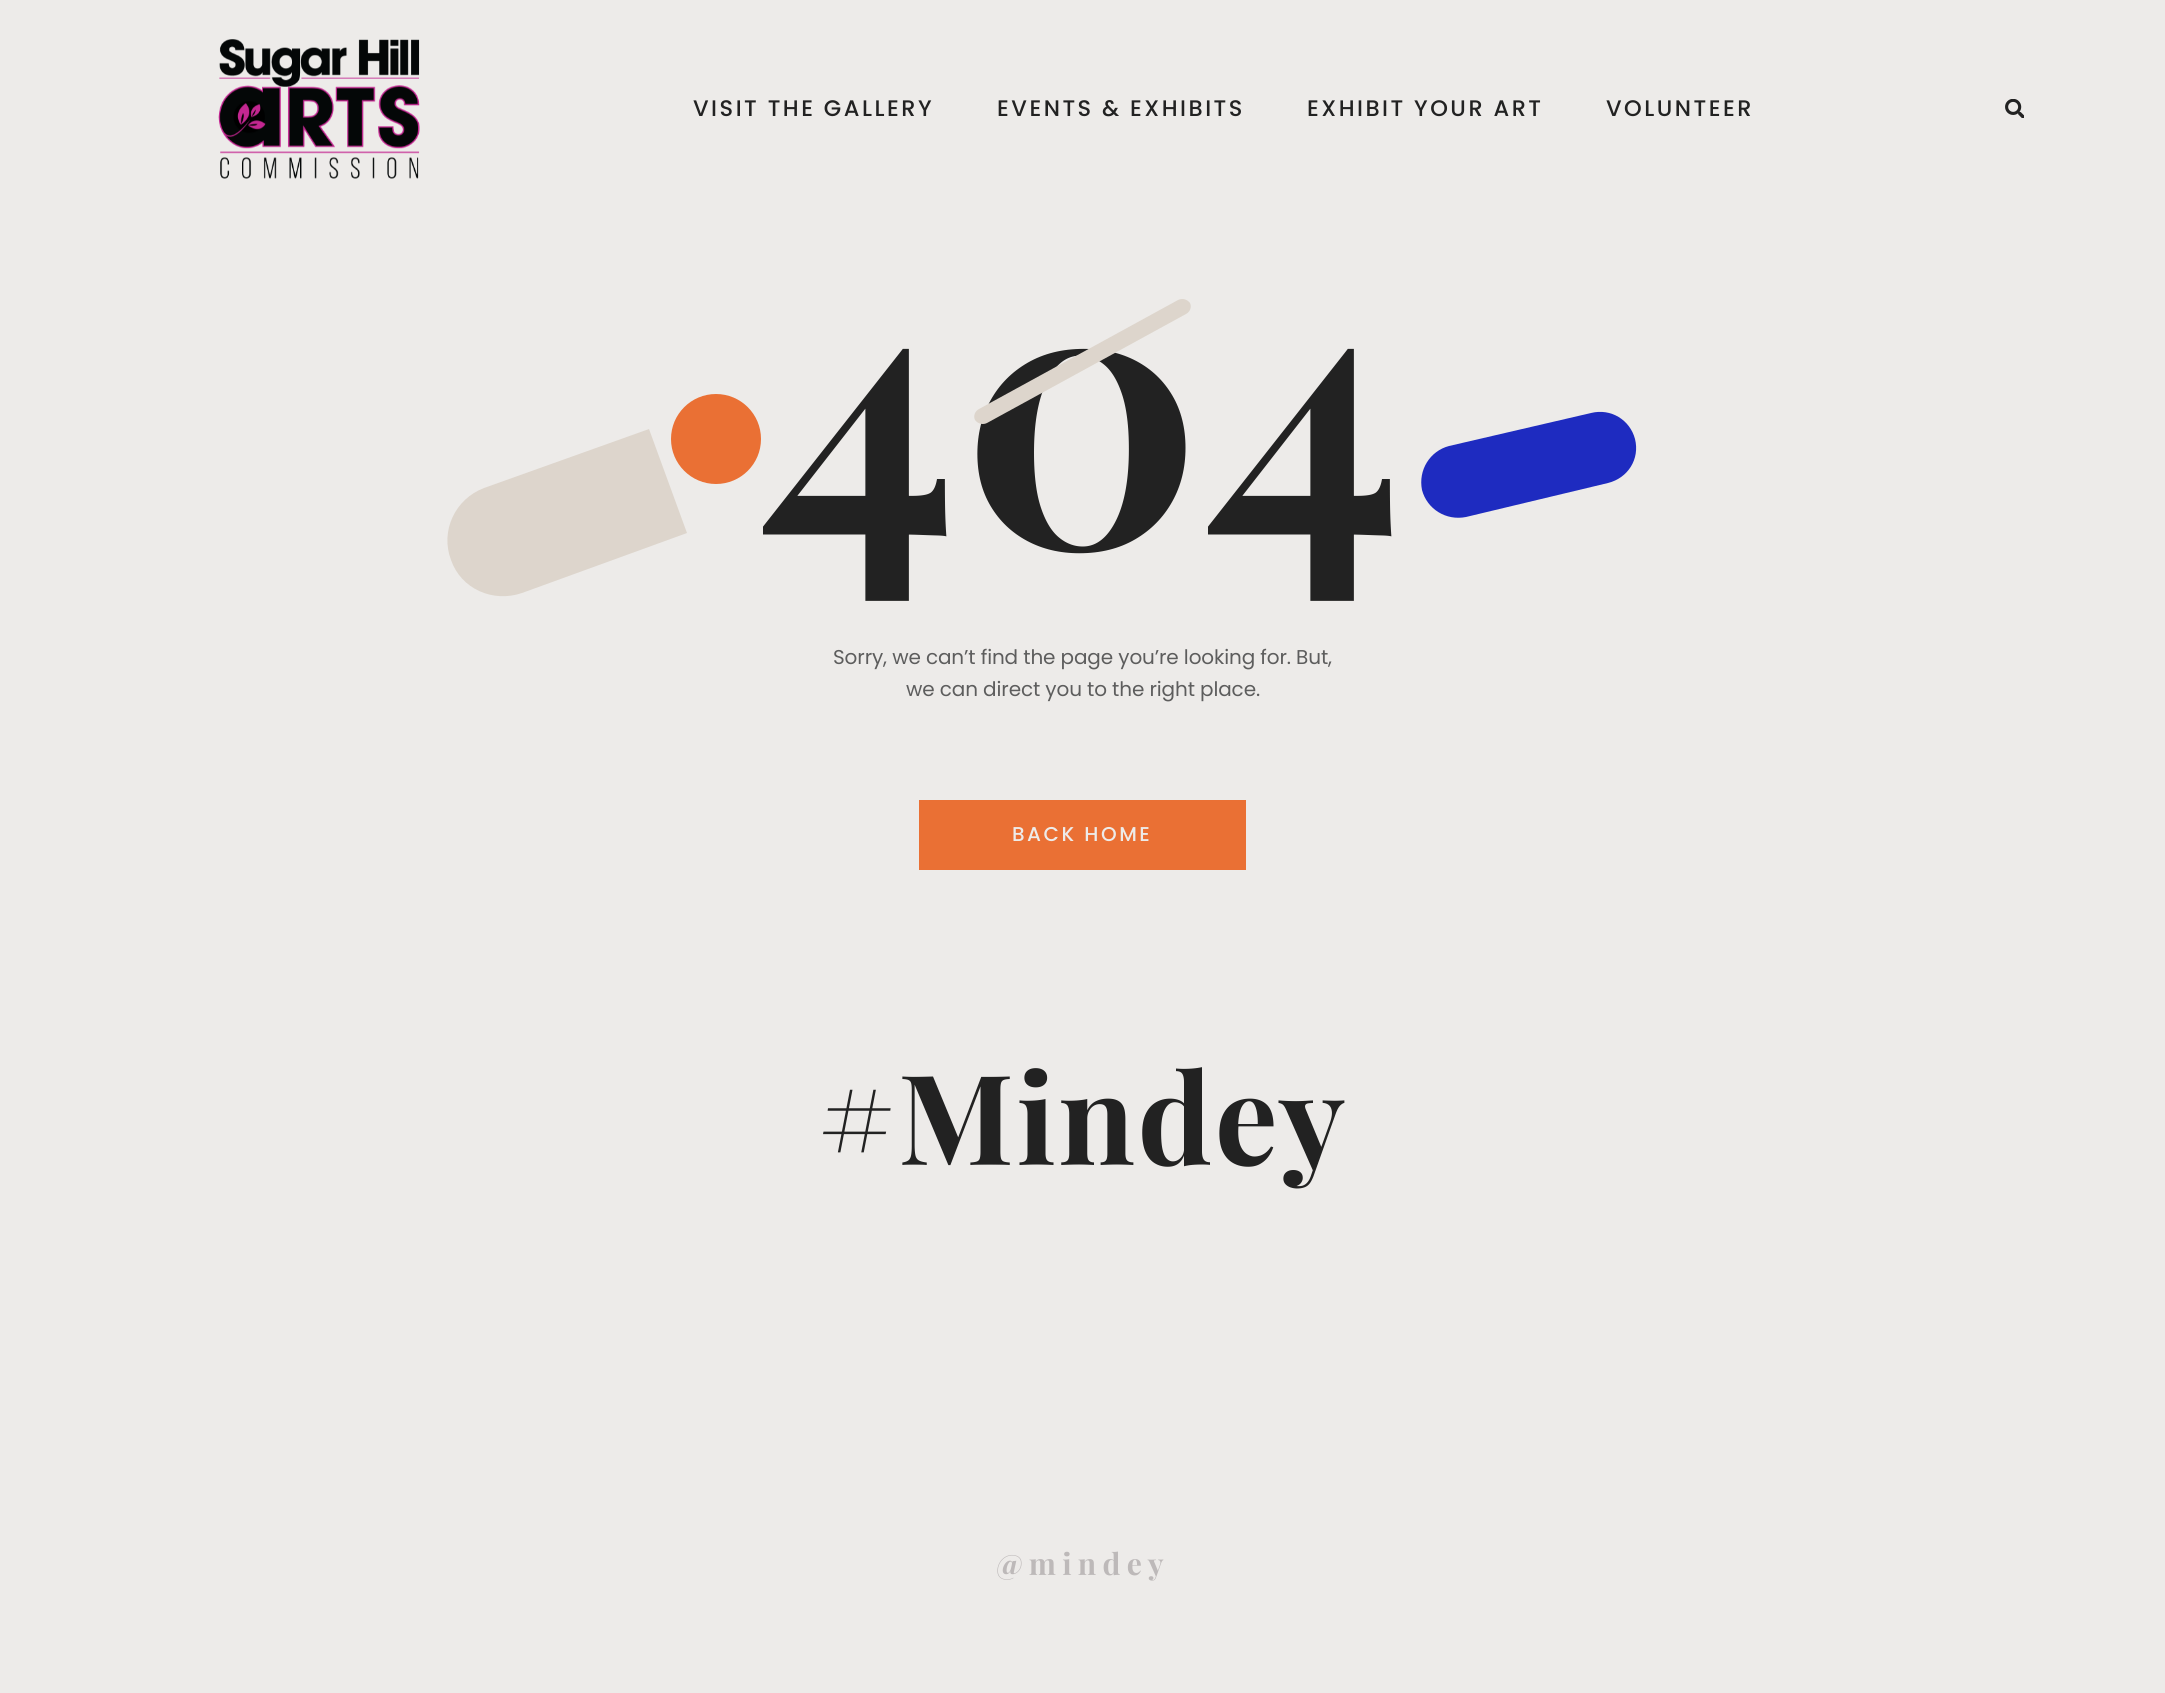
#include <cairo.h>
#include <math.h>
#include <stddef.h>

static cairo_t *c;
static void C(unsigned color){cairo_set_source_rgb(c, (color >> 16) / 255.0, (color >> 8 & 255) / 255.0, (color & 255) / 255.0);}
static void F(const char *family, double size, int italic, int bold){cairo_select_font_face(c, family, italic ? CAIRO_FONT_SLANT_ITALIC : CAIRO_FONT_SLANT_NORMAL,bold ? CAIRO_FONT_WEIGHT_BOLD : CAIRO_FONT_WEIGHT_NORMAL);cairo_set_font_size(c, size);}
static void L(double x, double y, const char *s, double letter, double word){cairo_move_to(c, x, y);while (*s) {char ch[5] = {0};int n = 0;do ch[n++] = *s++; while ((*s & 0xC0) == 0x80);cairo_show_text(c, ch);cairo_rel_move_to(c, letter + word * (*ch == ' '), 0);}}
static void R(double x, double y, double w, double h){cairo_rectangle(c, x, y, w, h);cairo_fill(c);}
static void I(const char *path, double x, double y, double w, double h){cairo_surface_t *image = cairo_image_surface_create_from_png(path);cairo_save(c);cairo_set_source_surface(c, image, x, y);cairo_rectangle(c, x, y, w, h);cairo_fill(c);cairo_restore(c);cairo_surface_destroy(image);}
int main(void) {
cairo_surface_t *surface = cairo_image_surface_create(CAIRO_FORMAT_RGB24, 2165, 1693);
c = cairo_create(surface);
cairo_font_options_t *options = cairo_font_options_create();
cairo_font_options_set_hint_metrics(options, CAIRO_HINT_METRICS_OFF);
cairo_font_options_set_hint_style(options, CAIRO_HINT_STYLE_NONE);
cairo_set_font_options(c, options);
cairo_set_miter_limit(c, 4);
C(0xedebe9);
cairo_paint(c);
I("1.png",218,39,202,140);
F("Poppins Medium",22.5,0,0);
C(0x222222);
L(693,116,"VISIT THE GALLERY",2.5,0);
L(997,116,"EVENTS & EXHIBITS",2.5,0);
L(1307,116,"EXHIBIT YOUR ART",2.5,0);
L(1606,116,"VOLUNTEER",2.5,0);
I("2.png",2005,99,19,19);
F("Playfair Display",375,0,1);
L(760,548,"404",2.5,0);
C(0xddd5cc);
cairo_new_path(c);
cairo_move_to(c,979,409);
cairo_line_to(c,1178,300);
cairo_curve_to(c,1182,298,1187,299,1190,303);
cairo_curve_to(c,1192,307,1190,312,1186,314);
cairo_line_to(c,987,423);
cairo_curve_to(c,983,425,978,424,975,420);
cairo_curve_to(c,973,416,975,411,979,409);
cairo_close_path(c);
cairo_fill(c);
cairo_new_path(c);
cairo_move_to(c,484,488);
cairo_line_to(c,649,429);
cairo_line_to(c,687,533);
cairo_line_to(c,522,593);
cairo_curve_to(c,493,603,461,589,451,560);
cairo_curve_to(c,440,531,455,499,484,488);
cairo_close_path(c);
cairo_fill(c);
C(0xea7034);
cairo_arc(c,716,439,45,0,2 * M_PI);
cairo_fill(c);
F("Poppins",20,0,0);
C(0x5d5d5d);
L(833,664,"Sorry, we can’t find the page you’re looking for. But,",-.12,0);
L(906,696,"we can direct you to the right place.",-.12,0);
C(0xea7034);
R(919,800,327,70);
F("Poppins Medium",20,0,0);
C(0xedebe9);
L(1012,841,"BACK HOME",2.5,0);
C(0x1e2bc0);
cairo_new_path(c);
cairo_move_to(c,1608,483);
cairo_line_to(c,1466,517);
cairo_curve_to(c,1446,521,1427,509,1422,490);
cairo_curve_to(c,1418,470,1430,451,1449,446);
cairo_line_to(c,1591,413);
cairo_curve_to(c,1611,408,1630,420,1635,439);
cairo_curve_to(c,1640,459,1628,478,1608,483);
cairo_close_path(c);
cairo_fill(c);
F("Playfair Display",125,0,1);
C(0x222222);
L(818,1165,"#Mindey",2.5,0);
F("Playfair Display",30,0,1);
C(0xbdb9b9);
L(996,1575,"@mindey",6.25,0);
cairo_surface_write_to_png(surface, "o.png");
cairo_font_options_destroy(options);
cairo_destroy(c);
cairo_surface_destroy(surface);
return 0;
}
